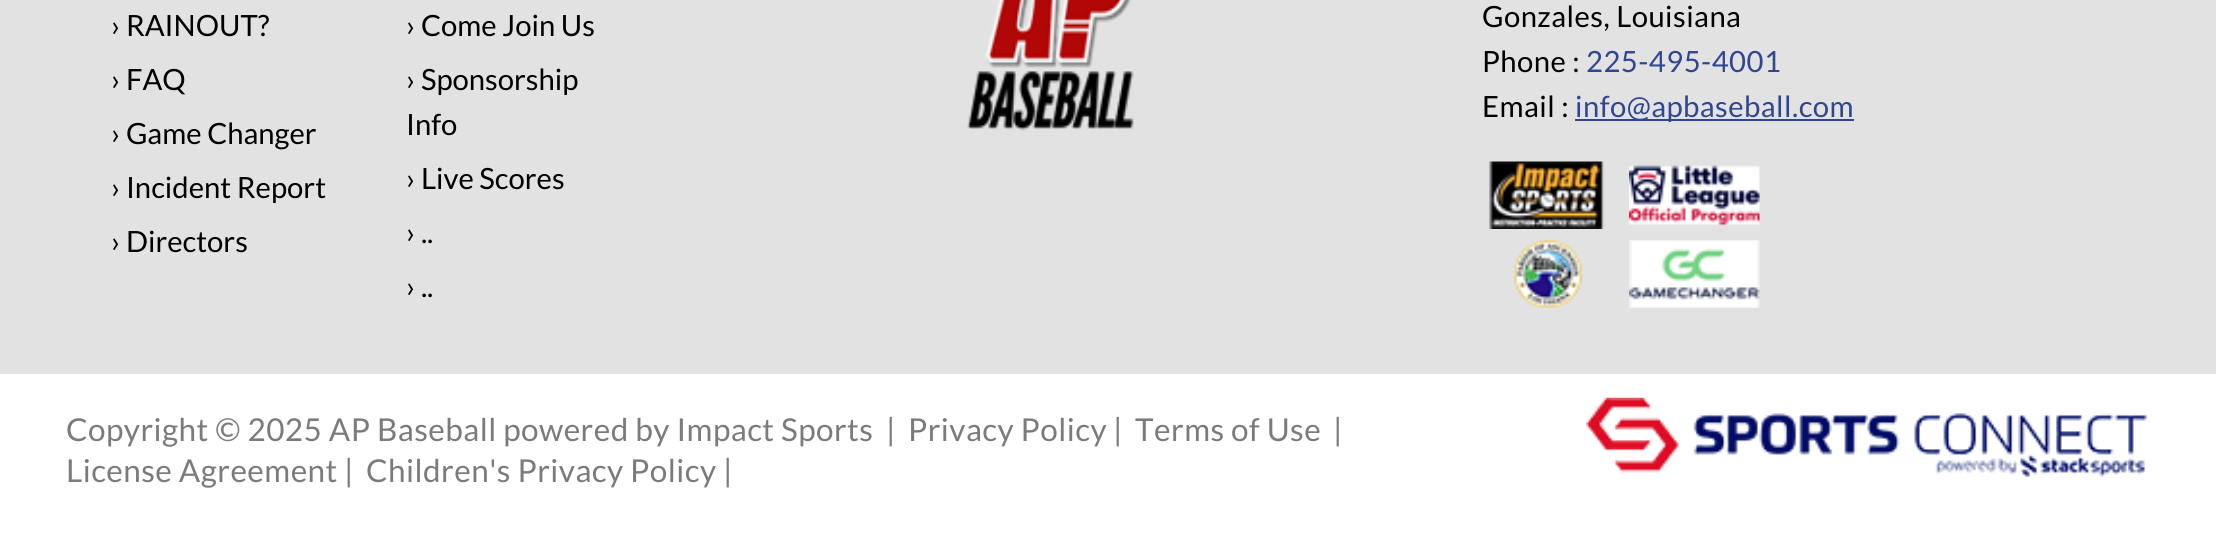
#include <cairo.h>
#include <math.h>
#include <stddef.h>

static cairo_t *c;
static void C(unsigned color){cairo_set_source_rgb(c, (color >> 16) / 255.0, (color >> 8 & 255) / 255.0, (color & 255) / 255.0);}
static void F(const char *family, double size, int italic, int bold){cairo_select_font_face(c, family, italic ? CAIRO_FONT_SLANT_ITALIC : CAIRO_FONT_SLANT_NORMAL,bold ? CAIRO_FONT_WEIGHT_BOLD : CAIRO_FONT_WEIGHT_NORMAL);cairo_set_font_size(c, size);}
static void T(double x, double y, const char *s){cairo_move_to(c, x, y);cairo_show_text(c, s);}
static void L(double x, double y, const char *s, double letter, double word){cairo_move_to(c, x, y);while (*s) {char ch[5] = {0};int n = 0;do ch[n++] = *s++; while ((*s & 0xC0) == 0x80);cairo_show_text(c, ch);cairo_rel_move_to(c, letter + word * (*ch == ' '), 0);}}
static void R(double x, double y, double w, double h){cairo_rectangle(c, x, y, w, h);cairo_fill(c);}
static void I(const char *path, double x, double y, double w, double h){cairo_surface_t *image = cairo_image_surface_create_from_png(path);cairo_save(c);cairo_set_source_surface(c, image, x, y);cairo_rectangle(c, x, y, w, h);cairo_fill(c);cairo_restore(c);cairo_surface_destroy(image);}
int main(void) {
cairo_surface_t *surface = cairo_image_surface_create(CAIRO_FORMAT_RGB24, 2216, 554);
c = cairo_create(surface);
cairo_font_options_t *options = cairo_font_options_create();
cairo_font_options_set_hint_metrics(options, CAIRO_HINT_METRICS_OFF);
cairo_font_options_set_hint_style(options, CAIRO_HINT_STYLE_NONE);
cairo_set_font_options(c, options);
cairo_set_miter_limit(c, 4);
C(0xffffff);
cairo_paint(c);
C(0xe2e2e2);
R(0,0,2216,374);
F("Lato",29.25,0,0);
C(0x000000);
T(111,36,"› RAINOUT?");
T(111,90,"› FAQ");
T(111,144,"› Game Changer");
T(111,198,"› Incident Report");
T(111,252,"› Directors");
T(406,36,"› Come Join Us");
T(406,90,"› Sponsorship");
T(406,135,"Info");
T(406,189,"› Live Scores");
T(406,243,"› ..");
T(406,297,"› ..");
I("1.png",967,0,167,131);
L(1482,27,"Gonzales, Louisiana",.45,0);
L(1482,72,"Phone :",.45,0);
C(0x304691);
L(1586,72,"225-495-4001",.45,0);
C(0x000000);
L(1482,117,"Email :",.45,0);
C(0x304691);
R(1575,119,279,2);
L(1575,117,"info@apbaseball.com",.45,0);
I("2.png",1489,161,116,68);
I("3.png",1629,165,131,61);
I("4.png",1513,240,70,68);
I("5.png",1629,240,131,68);
F("Lato",31.5,0,0);
C(0x7b7b7b);
L(66,441,"Copyright © 2025 AP Baseball powered by Impact Sports",.45,0);
T(886,441,"|");
L(908,441,"Privacy Policy",.45,0);
T(1113,441,"|");
L(1135,441,"Terms of Use",.45,0);
L(1333,441,"|",.45,0);
L(66,482,"License Agreement",.45,0);
T(344,482,"|");
L(366,482,"Children's Privacy Policy |",.45,0);
I("6.png",1586,397,562,80);
cairo_surface_write_to_png(surface, "o.png");
cairo_font_options_destroy(options);
cairo_destroy(c);
cairo_surface_destroy(surface);
return 0;
}
